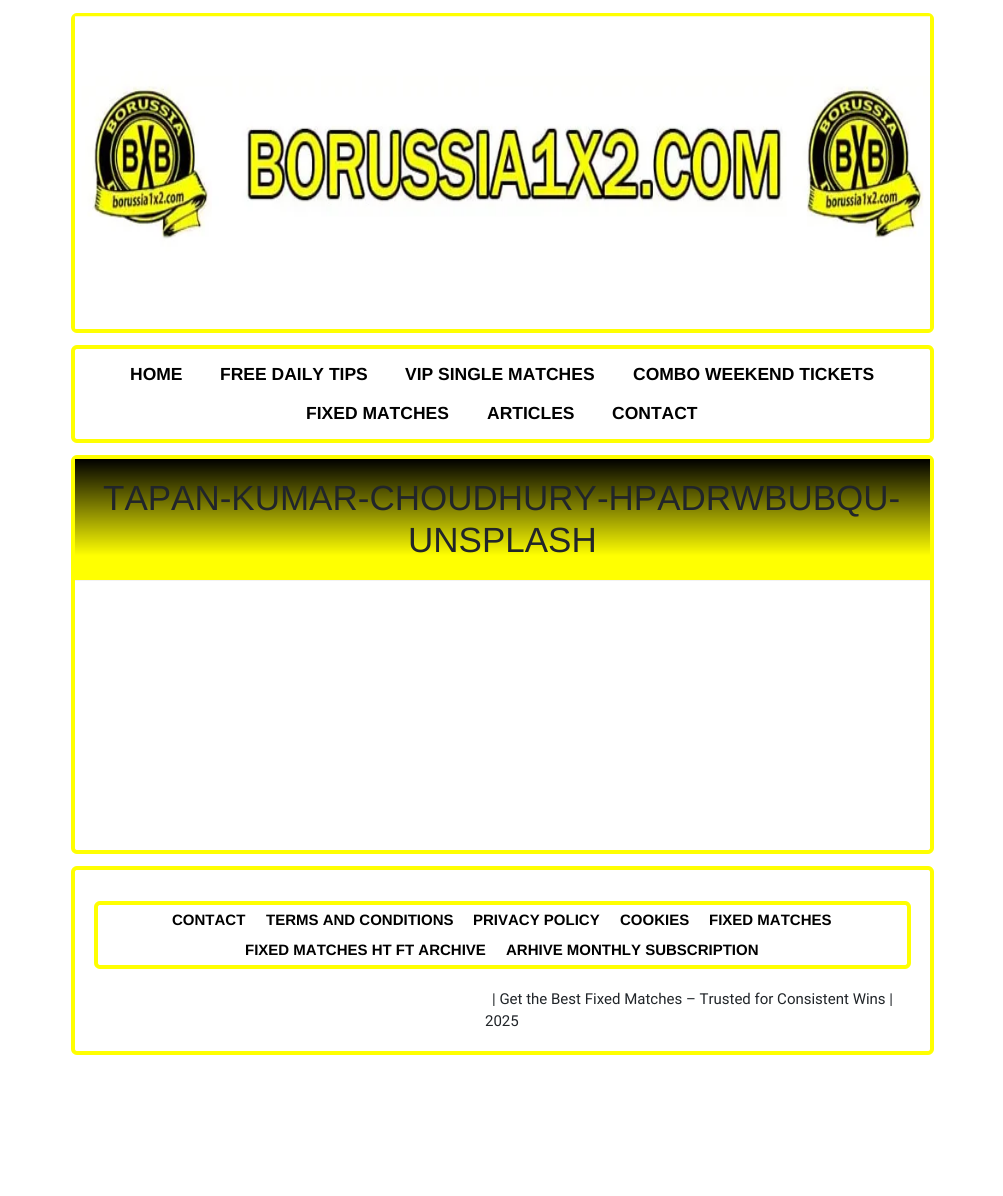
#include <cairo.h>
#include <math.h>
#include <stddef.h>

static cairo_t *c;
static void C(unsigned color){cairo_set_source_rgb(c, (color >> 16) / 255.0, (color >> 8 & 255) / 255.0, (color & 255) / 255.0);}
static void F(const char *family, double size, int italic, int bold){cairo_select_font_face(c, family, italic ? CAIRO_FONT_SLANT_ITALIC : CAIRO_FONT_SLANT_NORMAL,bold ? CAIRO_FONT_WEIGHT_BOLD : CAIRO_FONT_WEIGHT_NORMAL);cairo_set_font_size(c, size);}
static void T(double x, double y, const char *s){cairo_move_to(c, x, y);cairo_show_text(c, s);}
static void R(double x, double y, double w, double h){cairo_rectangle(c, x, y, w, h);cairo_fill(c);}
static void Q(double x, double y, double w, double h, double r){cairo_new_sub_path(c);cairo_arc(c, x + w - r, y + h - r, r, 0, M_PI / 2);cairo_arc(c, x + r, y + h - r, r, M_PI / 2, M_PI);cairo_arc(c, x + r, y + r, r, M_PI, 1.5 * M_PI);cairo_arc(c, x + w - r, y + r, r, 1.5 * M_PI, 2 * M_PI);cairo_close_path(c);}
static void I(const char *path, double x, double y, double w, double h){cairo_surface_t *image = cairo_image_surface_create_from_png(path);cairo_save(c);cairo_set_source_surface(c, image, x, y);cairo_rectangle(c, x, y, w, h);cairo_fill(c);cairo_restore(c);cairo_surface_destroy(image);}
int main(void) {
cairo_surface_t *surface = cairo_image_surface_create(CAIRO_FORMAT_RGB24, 1003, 1196);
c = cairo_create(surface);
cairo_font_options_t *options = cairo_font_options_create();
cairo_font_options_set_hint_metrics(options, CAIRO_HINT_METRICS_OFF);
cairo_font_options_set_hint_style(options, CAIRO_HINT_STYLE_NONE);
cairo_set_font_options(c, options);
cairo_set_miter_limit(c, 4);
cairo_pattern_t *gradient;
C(0xffffff);
cairo_paint(c);
Q(73,15,859,316,4);
C(0xffff01);
cairo_set_line_width(c,4);
cairo_stroke(c);
I("1.png",75,16,855,313);
Q(73,347,859,94,4);
cairo_stroke(c);
F("Liberation Sans",17.5,0,1);
C(0x000000);
T(130,380,"HOME");
T(220,380,"FREE DAILY TIPS");
T(405,380,"VIP SINGLE MATCHES");
T(633,380,"COMBO WEEKEND TICKETS");
T(306,419,"FIXED MATCHES");
T(487,419,"ARTICLES");
T(612,419,"CONTACT");
Q(73,457,859,395,4);
C(0xffff01);
cairo_stroke(c);
gradient = cairo_pattern_create_linear(503,459,503,580);
cairo_pattern_add_color_stop_rgba(gradient,0,0,0,0,1);
cairo_pattern_add_color_stop_rgba(gradient,.8,1,1,0.004,1);
cairo_set_source(c,gradient);
cairo_pattern_destroy(gradient);
R(75,459,855,121);
C(0xf3f3f3);
R(75,580,855,1);
F("Liberation Sans",35,0,0);
C(0x212529);
T(103,510,"TAPAN-KUMAR-CHOUDHURY-HPADRWBUBQU-");
T(408,552,"UNSPLASH");
Q(73,868,859,185,4);
C(0xffff01);
cairo_stroke(c);
Q(96,903,813,64,4);
cairo_stroke(c);
F("Liberation Sans",15,0,1);
C(0x000000);
T(172,925,"CONTACT");
T(266,925,"TERMS AND CONDITIONS");
T(473,925,"PRIVACY POLICY");
T(620,925,"COOKIES");
T(709,925,"FIXED MATCHES");
T(245,955,"FIXED MATCHES HT FT ARCHIVE");
T(506,955,"ARHIVE MONTHLY SUBSCRIPTION");
F("Roboto",15,0,0);
C(0x212529);
T(492,1004,"| Get the Best Fixed Matches – Trusted for Consistent Wins |");
T(485,1026,"2025");
cairo_surface_write_to_png(surface, "o.png");
cairo_font_options_destroy(options);
cairo_destroy(c);
cairo_surface_destroy(surface);
return 0;
}
